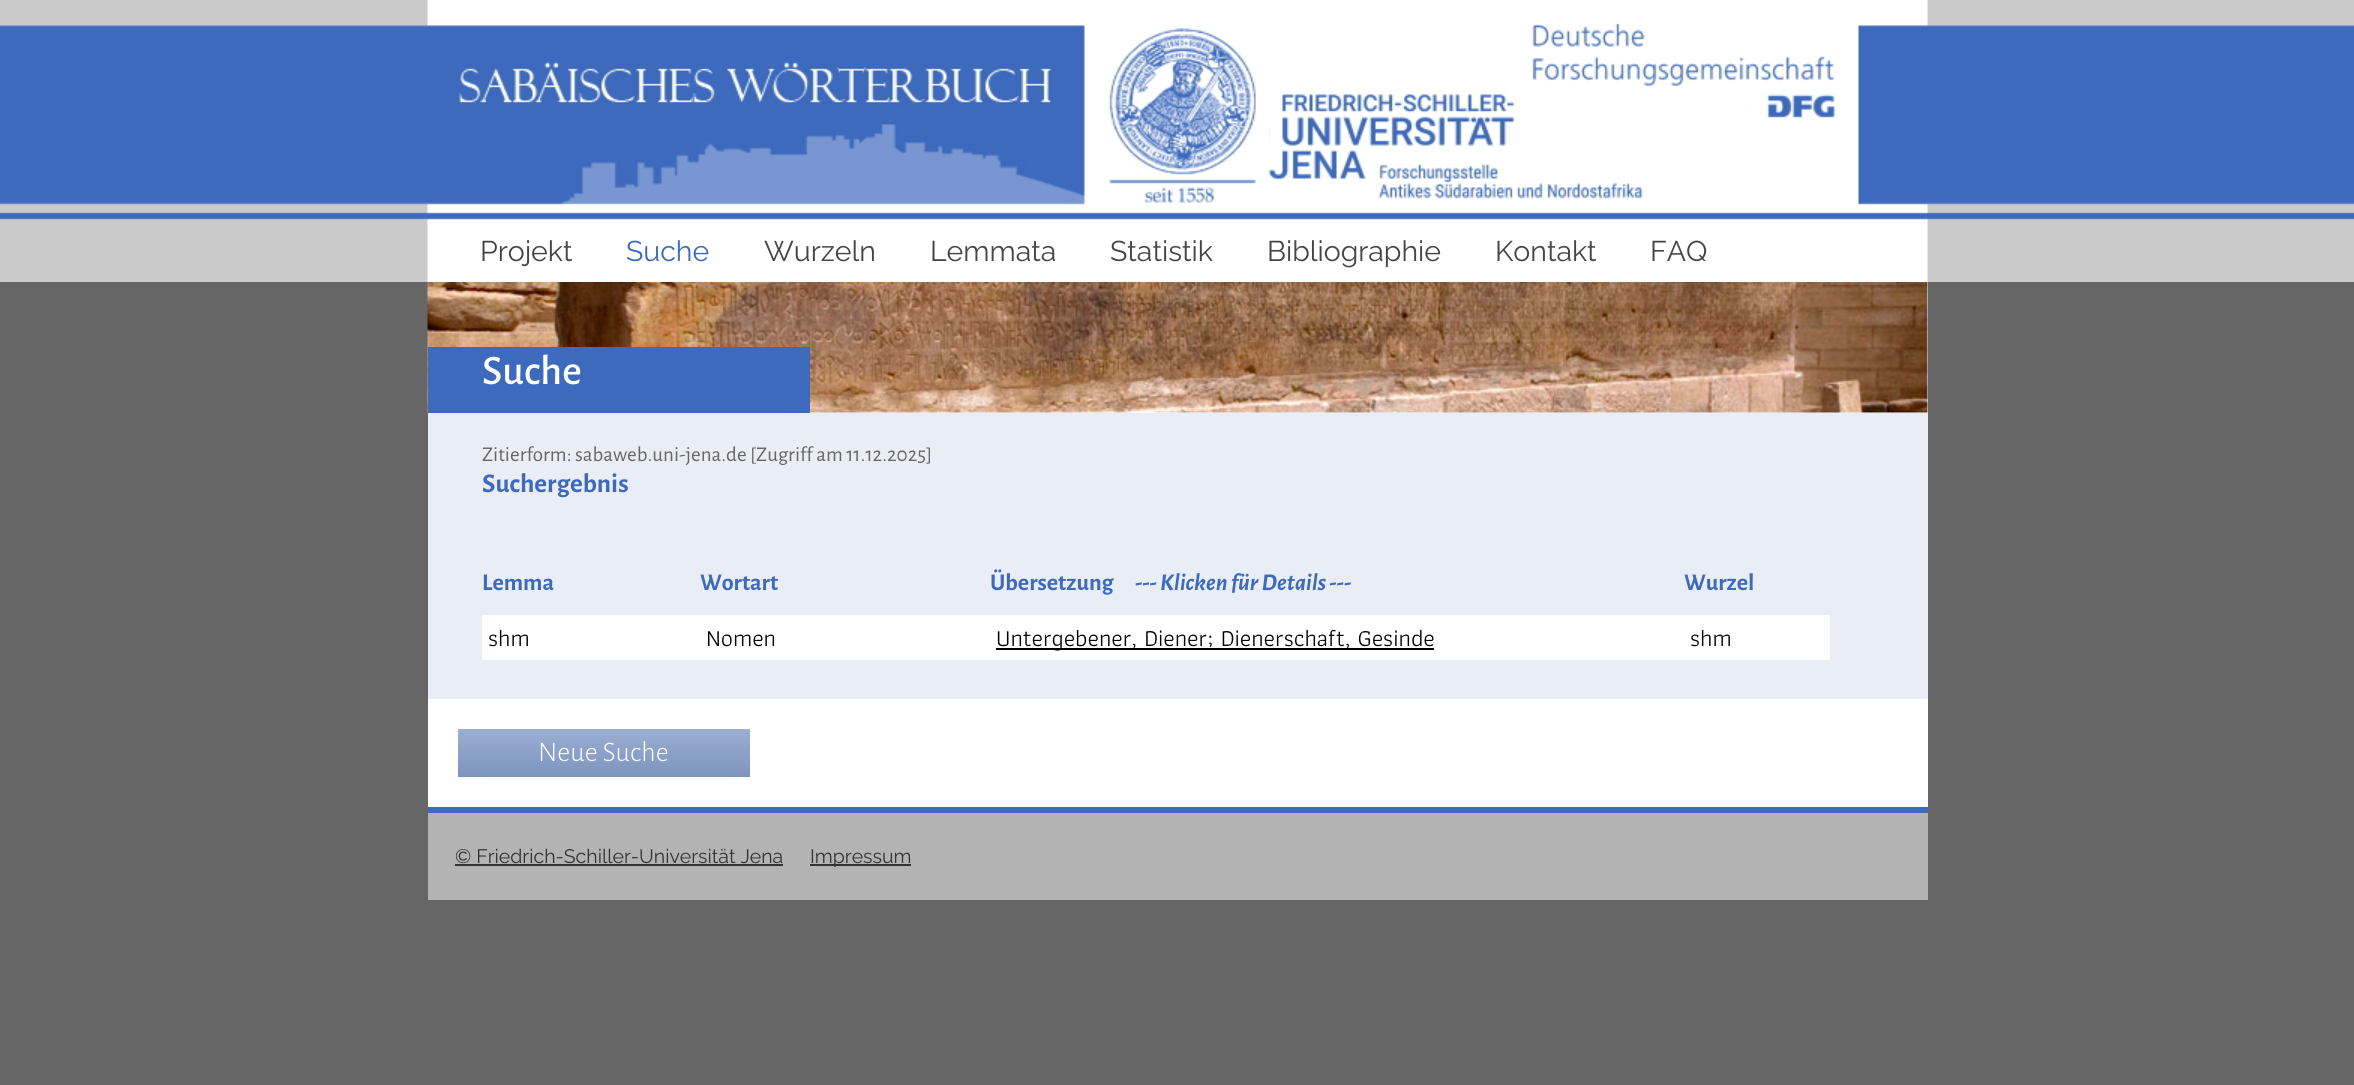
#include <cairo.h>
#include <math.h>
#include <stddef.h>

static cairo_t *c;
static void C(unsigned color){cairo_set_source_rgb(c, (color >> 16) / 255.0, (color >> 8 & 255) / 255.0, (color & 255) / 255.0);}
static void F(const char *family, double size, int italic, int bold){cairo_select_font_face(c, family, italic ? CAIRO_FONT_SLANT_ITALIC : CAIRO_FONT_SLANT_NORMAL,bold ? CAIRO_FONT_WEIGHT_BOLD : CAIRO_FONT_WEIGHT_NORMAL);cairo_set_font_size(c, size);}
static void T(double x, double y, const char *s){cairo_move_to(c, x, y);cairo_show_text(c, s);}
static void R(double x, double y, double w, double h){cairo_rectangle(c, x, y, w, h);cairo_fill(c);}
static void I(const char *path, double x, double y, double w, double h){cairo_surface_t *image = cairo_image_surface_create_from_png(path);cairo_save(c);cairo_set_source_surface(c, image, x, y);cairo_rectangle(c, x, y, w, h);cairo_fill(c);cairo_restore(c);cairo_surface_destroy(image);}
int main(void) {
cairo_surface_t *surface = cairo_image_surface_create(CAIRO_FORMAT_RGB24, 2354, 1085);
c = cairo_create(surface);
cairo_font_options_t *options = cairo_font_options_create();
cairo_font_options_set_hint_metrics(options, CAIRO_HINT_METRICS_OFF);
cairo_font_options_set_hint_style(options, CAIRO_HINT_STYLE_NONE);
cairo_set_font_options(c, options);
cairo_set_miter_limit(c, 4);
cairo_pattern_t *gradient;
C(0x666666);
cairo_paint(c);
I("1.png",0,0,2354,282);
I("2.png",427,0,1501,282);
F("Raleway",28.5,0,0);
C(0x454545);
T(480,261,"Projekt");
C(0x3e6abe);
T(626,261,"Suche");
C(0x454545);
T(764,261,"Wurzeln");
T(930,261,"Lemmata");
T(1110,261,"Statistik");
T(1267,261,"Bibliographie");
T(1495,261,"Kontakt");
T(1650,261,"FAQ");
C(0xffffff);
R(428,282,1500,525);
I("3.png",427,282,1501,131);
C(0x3e6abe);
R(428,347,382,66);
F("Alegreya Sans Medium",42,0,0);
C(0xffffff);
T(482,384,"Suche");
C(0xe9edf5);
R(428,413,1500,286);
F("Alegreya Sans",21,0,0);
C(0x666666);
T(482,461,"Zitierform: sabaweb.uni-jena.de [Zugriff am 11.12.2025]");
F("Alegreya Sans",27,0,1);
C(0x3e6abe);
T(482,492,"Suchergebnis");
F("Alegreya Sans",24,0,1);
T(482,590,"Lemma");
T(700,590,"Wortart");
T(990,590,"Übersetzung");
F("Alegreya Sans",24,1,1);
T(1135,590,"--- Klicken für Details ---");
F("Alegreya Sans",24,0,1);
T(1684,590,"Wurzel");
C(0xffffff);
R(482,615,1348,45);
F("Athiti",24,0,0);
C(0x000000);
T(488,646,"shm");
T(706,646,"Nomen");
R(996,648,438,2);
T(996,646,"Untergebener, Diener; Dienerschaft, Gesinde");
T(1690,646,"shm");
gradient = cairo_pattern_create_linear(604,729,604,777);
cairo_pattern_add_color_stop_rgba(gradient,0,0.608,0.682,0.824,1);
cairo_pattern_add_color_stop_rgba(gradient,1,0.494,0.58,0.745,1);
cairo_set_source(c,gradient);
cairo_pattern_destroy(gradient);
R(458,729,292,48);
F("Alegreya Sans Light",28.5,0,0);
C(0xffffff);
T(538,761,"Neue Suche");
C(0xb3b3b3);
R(428,813,1500,87);
C(0x3e6abe);
R(428,807,1500,6);
F("Raleway",19.5,0,0);
C(0x333333);
T(455,863,"© Friedrich-Schiller-Universität Jena");
R(455,864,328,2);
R(810,864,101,2);
T(810,863,"Impressum");
cairo_surface_write_to_png(surface, "o.png");
cairo_font_options_destroy(options);
cairo_destroy(c);
cairo_surface_destroy(surface);
return 0;
}
